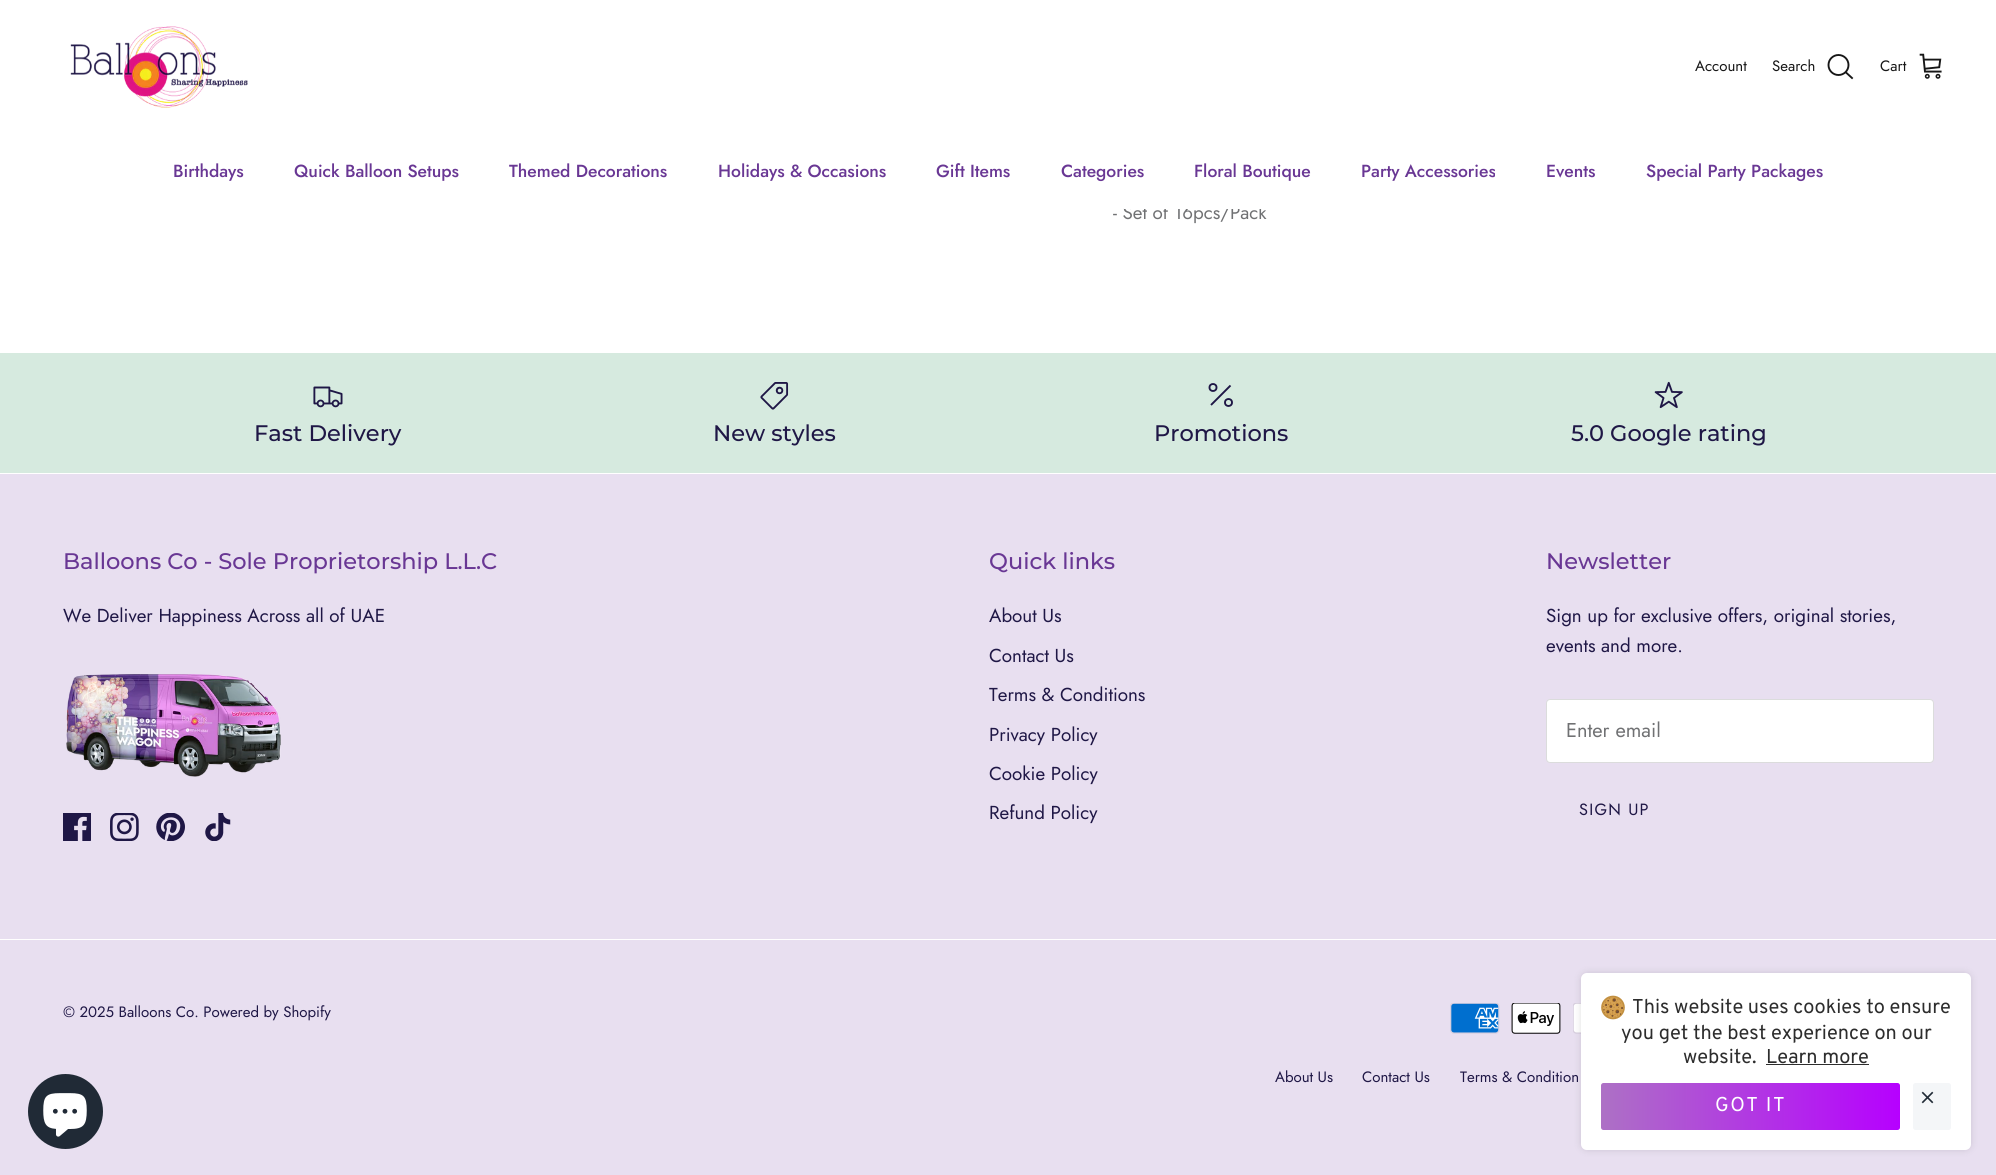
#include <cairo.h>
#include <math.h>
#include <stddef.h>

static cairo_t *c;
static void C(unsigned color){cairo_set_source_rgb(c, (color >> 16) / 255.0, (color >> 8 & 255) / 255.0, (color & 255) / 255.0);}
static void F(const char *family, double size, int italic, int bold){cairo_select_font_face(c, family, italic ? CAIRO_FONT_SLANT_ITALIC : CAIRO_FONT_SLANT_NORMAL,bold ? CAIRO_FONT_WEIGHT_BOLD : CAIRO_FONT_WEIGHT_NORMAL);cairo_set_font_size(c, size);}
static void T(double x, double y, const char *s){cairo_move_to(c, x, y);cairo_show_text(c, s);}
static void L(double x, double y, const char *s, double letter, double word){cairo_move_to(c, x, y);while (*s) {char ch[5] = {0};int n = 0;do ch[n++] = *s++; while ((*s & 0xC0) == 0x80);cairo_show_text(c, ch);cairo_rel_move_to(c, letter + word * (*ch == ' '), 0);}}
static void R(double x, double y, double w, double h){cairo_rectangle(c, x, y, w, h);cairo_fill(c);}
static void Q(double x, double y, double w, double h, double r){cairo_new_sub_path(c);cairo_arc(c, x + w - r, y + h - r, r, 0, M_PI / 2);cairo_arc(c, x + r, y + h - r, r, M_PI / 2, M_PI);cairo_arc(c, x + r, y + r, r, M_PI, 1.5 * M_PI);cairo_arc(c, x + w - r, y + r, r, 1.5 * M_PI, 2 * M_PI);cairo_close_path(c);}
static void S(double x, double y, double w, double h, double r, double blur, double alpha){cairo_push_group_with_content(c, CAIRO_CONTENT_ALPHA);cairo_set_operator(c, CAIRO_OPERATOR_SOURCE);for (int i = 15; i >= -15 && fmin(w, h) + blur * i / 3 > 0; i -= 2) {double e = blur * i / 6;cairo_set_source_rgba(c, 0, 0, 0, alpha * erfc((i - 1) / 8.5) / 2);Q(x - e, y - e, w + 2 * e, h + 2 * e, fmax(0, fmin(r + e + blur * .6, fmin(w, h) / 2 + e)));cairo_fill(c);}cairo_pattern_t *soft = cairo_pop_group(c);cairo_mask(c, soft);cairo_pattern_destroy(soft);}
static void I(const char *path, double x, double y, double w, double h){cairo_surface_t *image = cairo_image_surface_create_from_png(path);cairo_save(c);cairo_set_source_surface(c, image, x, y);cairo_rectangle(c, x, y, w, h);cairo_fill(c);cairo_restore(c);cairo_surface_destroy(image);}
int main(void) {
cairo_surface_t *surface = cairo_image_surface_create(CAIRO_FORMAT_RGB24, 1996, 1175);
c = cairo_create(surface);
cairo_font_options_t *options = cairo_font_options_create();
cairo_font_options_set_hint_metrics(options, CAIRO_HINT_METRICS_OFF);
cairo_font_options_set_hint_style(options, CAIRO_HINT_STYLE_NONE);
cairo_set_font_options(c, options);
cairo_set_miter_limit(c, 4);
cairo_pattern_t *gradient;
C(0xffffff);
cairo_paint(c);
I("1.png",70,26,178,82);
F("Jost",15,0,0);
C(0x171717);
T(1695,71,"Account");
T(1772,71,"Search");
cairo_new_path(c);
cairo_arc(c,1838.5,65,10,0,2 * M_PI);
cairo_set_line_width(c,1.9);
cairo_stroke(c);
cairo_new_path(c);
cairo_move_to(c,1846,72.5);
cairo_line_to(c,1852,78);
cairo_set_line_cap(c,CAIRO_LINE_CAP_SQUARE);
cairo_stroke(c);
T(1880,71,"Cart");
I("2.png",1919,53,23,26);
F("Jost",18.75,0,0);
C(0x707173);
T(1113,219,"- Set of 16pcs/Pack");
C(0xffffff);
R(1124,204,138,5);
F("Jost Medium",17.5,0,0);
C(0x693794);
T(173,177,"Birthdays");
T(294,177,"Quick Balloon Setups");
T(509,177,"Themed Decorations");
T(718,177,"Holidays & Occasions");
T(936,177,"Gift Items");
T(1061,177,"Categories");
T(1194,177,"Floral Boutique");
T(1361,177,"Party Accessories");
T(1546,177,"Events");
T(1646,177,"Special Party Packages");
C(0xe8dff0);
R(0,474,1996,701);
C(0xd6eadf);
R(0,353,1996,120);
I("3.png",313,386,30,22);
F("Montserrat Medium",22.5,0,0);
C(0x1f1746);
T(254,441,"Fast Delivery");
I("4.png",760,382,29,28);
T(713,441,"New styles");
cairo_new_path(c);
cairo_move_to(c,1230.5,385.5);
cairo_line_to(c,1211,405);
cairo_set_line_cap(c,CAIRO_LINE_CAP_BUTT);
cairo_stroke(c);
cairo_arc(c,1213,387.5,3.5,0,2 * M_PI);
cairo_stroke(c);
cairo_arc(c,1228.5,402.5,3.5,0,2 * M_PI);
cairo_stroke(c);
T(1154,441,"Promotions");
I("5.png",1654,381,29,28);
T(1571,441,"5.0 Google rating");
C(0x693794);
T(63,569,"Balloons Co - Sole Proprietorship L.L.C");
F("Jost",18.75,0,0);
C(0x1f1746);
T(63,622,"We Deliver Happiness Across all of UAE");
I("6.png",66,674,215,103);
I("7.png",63,813,28,28);
I("8.png",110,813,29,28);
I("9.png",156,813,29,28);
I("10.png",205,813,26,28);
F("Montserrat Medium",22.5,0,0);
C(0x693794);
T(989,569,"Quick links");
F("Jost",18.75,0,0);
C(0x1f1746);
T(989,622,"About Us");
T(989,662,"Contact Us");
T(989,701,"Terms & Conditions");
T(989,741,"Privacy Policy");
T(989,780,"Cookie Policy");
T(989,819,"Refund Policy");
F("Montserrat Medium",22.5,0,0);
C(0x693794);
T(1546,569,"Newsletter");
F("Jost",18.75,0,0);
C(0x1f1746);
T(1546,622,"Sign up for exclusive offers, original stories,");
T(1546,652,"events and more.");
C(0xffffff);
Q(1546.5,699.5,387,63,3.5);
cairo_fill_preserve(c);
C(0xdbdcdc);
cairo_set_line_width(c,1);
cairo_stroke(c);
F("Jost",20,0,0);
C(0x707173);
T(1566,737,"Enter email");
F("Jost",16.25,0,0);
C(0x1f1746);
L(1579,815,"SIGN UP",1.25,0);
C(0xffffff);
R(0,939,1996,1);
F("Jost",15,0,0);
C(0x1f1746);
T(63,1017,"© 2025 Balloons Co. Powered by Shopify");
I("11.png",1450,1003,50,31);
I("12.png",1511,1003,50,31);
I("13.png",1573,1003,8,31);
T(1275,1082,"About Us");
T(1362,1082,"Contact Us");
T(1460,1082,"Terms & Condition");
C(0x202a36);
cairo_new_path(c);
cairo_arc(c,65.5,1111.5,37.5,0,2 * M_PI);
cairo_fill(c);
I("14.png",43,1093,44,44);
C(0xffffff);
Q(1581,973,390,177,6);
cairo_fill(c);
cairo_save(c);
cairo_set_fill_rule(c,CAIRO_FILL_RULE_EVEN_ODD);
cairo_new_path(c);
cairo_move_to(c,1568,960);
cairo_line_to(c,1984,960);
cairo_line_to(c,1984,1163);
cairo_line_to(c,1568,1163);
cairo_close_path(c);
cairo_move_to(c,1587,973);
cairo_line_to(c,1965,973);
cairo_curve_to(c,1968.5,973,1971,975.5,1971,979);
cairo_line_to(c,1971,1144);
cairo_curve_to(c,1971,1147.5,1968.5,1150,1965,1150);
cairo_line_to(c,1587,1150);
cairo_curve_to(c,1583.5,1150,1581,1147.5,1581,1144);
cairo_line_to(c,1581,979);
cairo_curve_to(c,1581,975.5,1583.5,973,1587,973);
cairo_close_path(c);
cairo_clip(c);
C(0x000000);
S(1581,973,390,177,6,4,.12);
cairo_restore(c);
I("15.png",1601,995,24,25);
F("Overpass",20,0,0);
C(0x2d2d2d);
T(1632,1013,"This website uses cookies to ensure");
T(1621,1039,"you get the best experience on our");
T(1683,1063,"website.");
T(1766,1063,"Learn more");
R(1766,1064,103,1);
gradient = cairo_pattern_create_linear(1601,1106,1900,1106);
cairo_pattern_add_color_stop_rgba(gradient,0,0.678,0.443,0.773,1);
cairo_pattern_add_color_stop_rgba(gradient,1,0.714,0,1,1);
cairo_set_source(c,gradient);
cairo_pattern_destroy(gradient);
Q(1601,1083,299,47,2.5);
cairo_fill(c);
C(0xffffff);
L(1715,1111,"GOT IT",1.5,0);
C(0xf4f6f8);
Q(1913,1083,38,47,2.5);
cairo_fill(c);
I("16.png",1921,1091,13,13);
cairo_surface_write_to_png(surface, "o.png");
cairo_font_options_destroy(options);
cairo_destroy(c);
cairo_surface_destroy(surface);
return 0;
}
